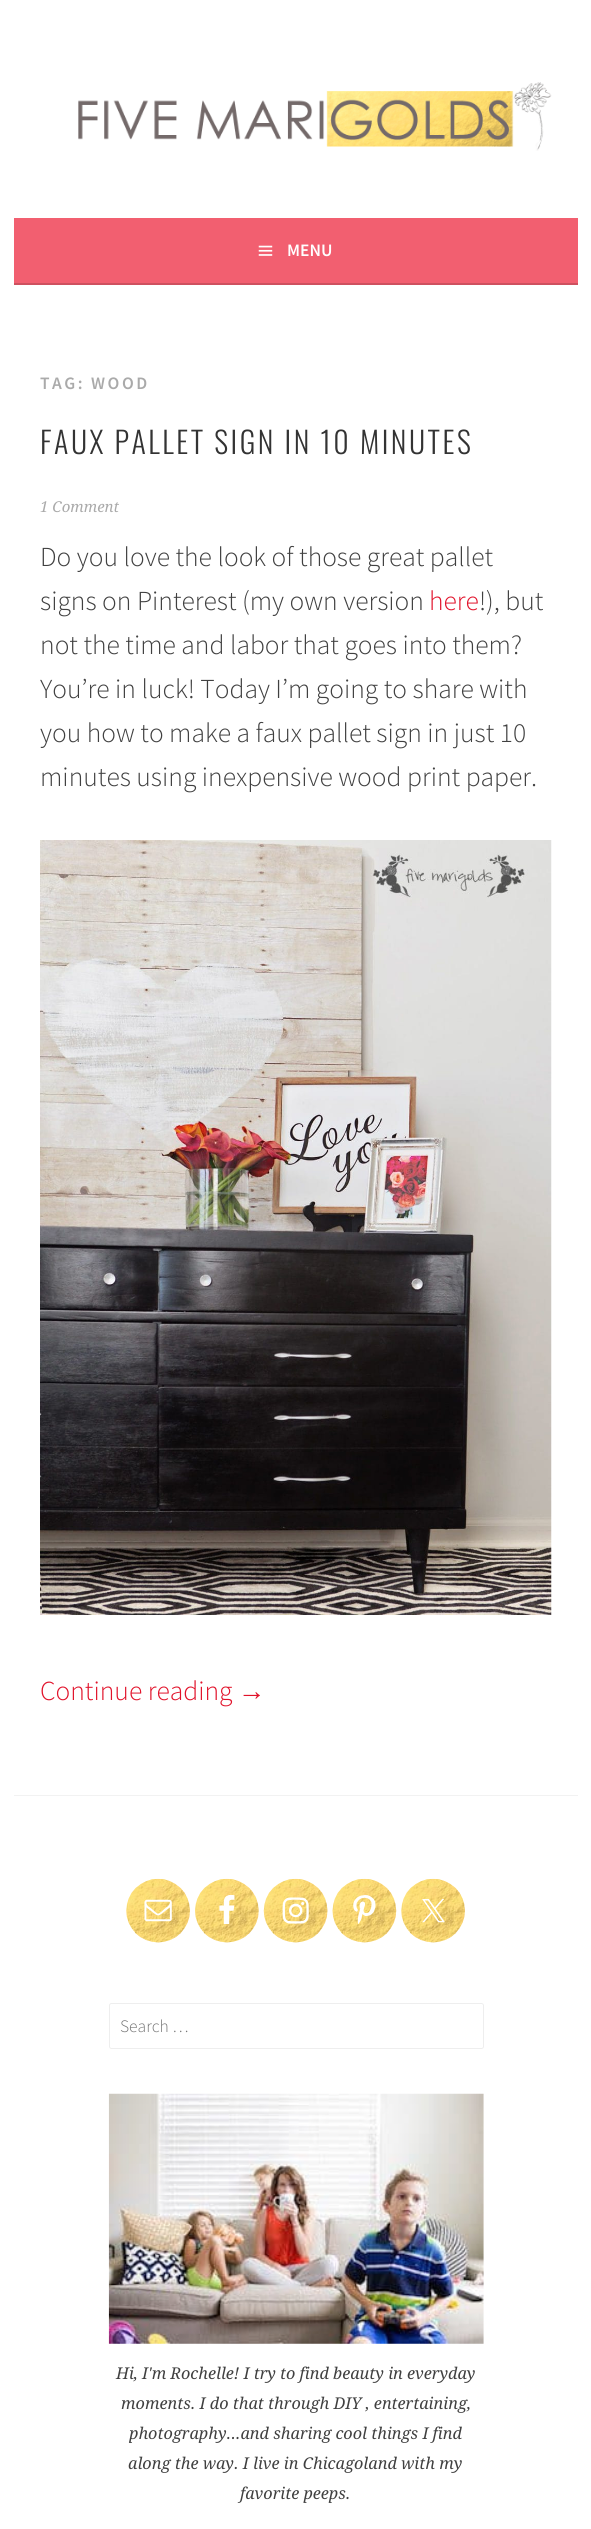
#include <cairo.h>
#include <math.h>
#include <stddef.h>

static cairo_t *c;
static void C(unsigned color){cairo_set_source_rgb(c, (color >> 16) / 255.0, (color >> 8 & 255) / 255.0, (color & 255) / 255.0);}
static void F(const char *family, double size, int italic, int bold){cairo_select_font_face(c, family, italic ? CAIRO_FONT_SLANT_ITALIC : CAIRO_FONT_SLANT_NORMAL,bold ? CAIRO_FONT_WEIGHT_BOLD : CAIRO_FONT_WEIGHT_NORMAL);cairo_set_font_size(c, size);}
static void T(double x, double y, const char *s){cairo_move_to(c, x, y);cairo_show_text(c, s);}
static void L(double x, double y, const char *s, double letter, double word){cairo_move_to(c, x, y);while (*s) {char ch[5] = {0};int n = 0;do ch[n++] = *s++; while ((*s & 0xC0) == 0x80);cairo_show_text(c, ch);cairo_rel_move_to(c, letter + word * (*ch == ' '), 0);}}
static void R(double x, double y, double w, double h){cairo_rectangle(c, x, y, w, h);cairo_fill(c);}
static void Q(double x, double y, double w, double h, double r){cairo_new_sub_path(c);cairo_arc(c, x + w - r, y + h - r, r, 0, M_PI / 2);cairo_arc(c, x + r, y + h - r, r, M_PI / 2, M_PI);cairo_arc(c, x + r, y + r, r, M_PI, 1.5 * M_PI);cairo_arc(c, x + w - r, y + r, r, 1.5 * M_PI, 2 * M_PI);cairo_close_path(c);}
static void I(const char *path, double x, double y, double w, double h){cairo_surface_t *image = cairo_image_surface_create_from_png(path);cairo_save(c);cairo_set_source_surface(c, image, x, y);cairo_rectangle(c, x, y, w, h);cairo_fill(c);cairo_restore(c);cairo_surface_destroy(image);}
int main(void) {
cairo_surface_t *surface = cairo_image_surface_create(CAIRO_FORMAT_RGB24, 591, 2529);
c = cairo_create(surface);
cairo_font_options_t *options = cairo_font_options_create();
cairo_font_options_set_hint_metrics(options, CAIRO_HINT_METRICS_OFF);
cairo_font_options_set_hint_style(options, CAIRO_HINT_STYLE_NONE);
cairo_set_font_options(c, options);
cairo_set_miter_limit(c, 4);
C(0xffffff);
cairo_paint(c);
I("1.png",78,82,474,69);
C(0xf25f70);
R(14,218,564,65);
C(0xce515f);
R(14,283,564,2);
I("2.png",258,245,15,11);
F("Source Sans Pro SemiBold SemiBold",17.5,0,0);
C(0xffffff);
T(287,256,"MENU");
C(0xaaaaaa);
L(40,389,"TAG: WOOD",2.5,0);
F("Oswald Light",30,0,0);
C(0x333333);
L(40,454,"FAUX PALLET SIGN IN 10 MINUTES",2.5,0);
F("Droid Serif",15,1,0);
C(0xaaaaaa);
T(40,512,"1 Comment");
F("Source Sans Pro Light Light",27.5,0,0);
C(0x404040);
T(40,566,"Do you love the look of those great pallet");
T(40,610,"signs on Pinterest (my own version");
C(0xe1122a);
T(429,610,"here");
C(0x404040);
T(479,610,"!), but");
T(40,654,"not the time and labor that goes into them?");
T(40,698,"You’re in luck! Today I’m going to share with");
T(40,742,"you how to make a faux pallet sign in just 10");
T(40,786,"minutes using inexpensive wood print paper.");
I("3.png",40,840,512,775);
C(0xe1122a);
T(40,1700,"Continue reading");
F("Liberation Sans",27.5,0,0);
T(238,1700,"→");
C(0xf2f2f2);
R(14,1795,564,1);
I("4.png",126,1878,64,65);
I("5.png",144,1899,28,23);
I("6.png",195,1878,64,65);
I("7.png",219,1895,16,29);
I("8.png",263,1878,65,65);
I("9.png",282,1897,27,27);
I("10.png",332,1878,65,65);
I("11.png",353,1895,23,29);
I("12.png",401,1878,64,65);
I("13.png",422,1899,23,24);
Q(109.5,2003.5,374,45,2);
C(0xeeeeee);
cairo_set_line_width(c,1);
cairo_stroke(c);
F("Source Sans Pro Light Light",17.5,0,0);
C(0x757575);
T(120,2032,"Search …");
I("14.png",108,2093,376,251);
F("Droid Serif",16.25,1,0);
C(0x404040);
T(116,2379,"Hi, I'm Rochelle! I try to find beauty in everyday");
T(121,2409,"moments. I do that through DIY , entertaining,");
T(129,2439,"photography...and sharing cool things I find");
T(128,2469,"along the way. I live in Chicagoland with my");
T(240,2499,"favorite peeps.");
cairo_surface_write_to_png(surface, "o.png");
cairo_font_options_destroy(options);
cairo_destroy(c);
cairo_surface_destroy(surface);
return 0;
}
